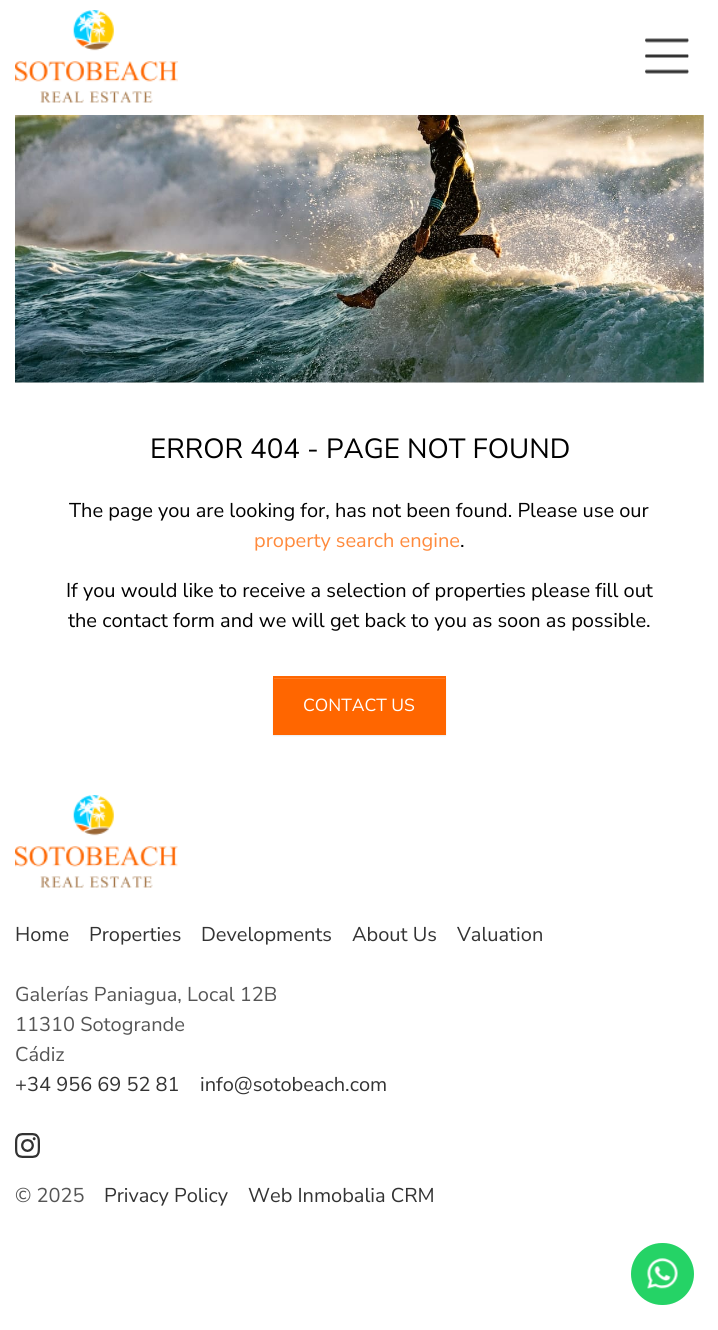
#include <cairo.h>
#include <math.h>
#include <stddef.h>

static cairo_t *c;
static void C(unsigned color){cairo_set_source_rgb(c, (color >> 16) / 255.0, (color >> 8 & 255) / 255.0, (color & 255) / 255.0);}
static void F(const char *family, double size, int italic, int bold){cairo_select_font_face(c, family, italic ? CAIRO_FONT_SLANT_ITALIC : CAIRO_FONT_SLANT_NORMAL,bold ? CAIRO_FONT_WEIGHT_BOLD : CAIRO_FONT_WEIGHT_NORMAL);cairo_set_font_size(c, size);}
static void T(double x, double y, const char *s){cairo_move_to(c, x, y);cairo_show_text(c, s);}
static void R(double x, double y, double w, double h){cairo_rectangle(c, x, y, w, h);cairo_fill(c);}
static void Q(double x, double y, double w, double h, double r){cairo_new_sub_path(c);cairo_arc(c, x + w - r, y + h - r, r, 0, M_PI / 2);cairo_arc(c, x + r, y + h - r, r, M_PI / 2, M_PI);cairo_arc(c, x + r, y + r, r, M_PI, 1.5 * M_PI);cairo_arc(c, x + w - r, y + r, r, 1.5 * M_PI, 2 * M_PI);cairo_close_path(c);}
static void S(double x, double y, double w, double h, double r, double blur, double alpha){cairo_push_group_with_content(c, CAIRO_CONTENT_ALPHA);cairo_set_operator(c, CAIRO_OPERATOR_SOURCE);for (int i = 15; i >= -15 && fmin(w, h) + blur * i / 3 > 0; i -= 2) {double e = blur * i / 6;cairo_set_source_rgba(c, 0, 0, 0, alpha * erfc((i - 1) / 8.5) / 2);Q(x - e, y - e, w + 2 * e, h + 2 * e, fmax(0, fmin(r + e + blur * .6, fmin(w, h) / 2 + e)));cairo_fill(c);}cairo_pattern_t *soft = cairo_pop_group(c);cairo_mask(c, soft);cairo_pattern_destroy(soft);}
static void I(const char *path, double x, double y, double w, double h){cairo_surface_t *image = cairo_image_surface_create_from_png(path);cairo_save(c);cairo_set_source_surface(c, image, x, y);cairo_rectangle(c, x, y, w, h);cairo_fill(c);cairo_restore(c);cairo_surface_destroy(image);}
int main(void) {
cairo_surface_t *surface = cairo_image_surface_create(CAIRO_FORMAT_RGB24, 718, 1330);
c = cairo_create(surface);
cairo_font_options_t *options = cairo_font_options_create();
cairo_font_options_set_hint_metrics(options, CAIRO_HINT_METRICS_OFF);
cairo_font_options_set_hint_style(options, CAIRO_HINT_STYLE_NONE);
cairo_set_font_options(c, options);
cairo_set_miter_limit(c, 4);
C(0xffffff);
cairo_paint(c);
I("1.png",15,10,163,93);
I("2.png",645,38,44,36);
I("3.png",15,115,689,268);
F("Nunito Sans",27.7,0,0);
C(0x000000);
T(150,458,"ERROR 404 - PAGE NOT FOUND");
F("Nunito Sans",20,0,0);
T(69,517,"The page you are looking for, has not been found. Please use our");
C(0xff8a3c);
T(254,547,"property search engine");
C(0x000000);
T(460,547,".");
T(66,597,"If you would like to receive a selection of properties please fill out");
T(68,627,"the contact form and we will get back to you as soon as possible.");
C(0x000000);
S(273,678,173,58,0,.5,.07);
C(0xff6600);
R(273,676,173,59);
C(0xff7d26);
R(274,678,171,1);
F("Nunito Sans",17.5,0,0);
C(0xffffff);
T(303,711,"CONTACT US");
I("4.png",15,795,163,93);
F("Nunito Sans",20,0,0);
C(0x333333);
T(15,941,"Home");
T(89,941,"Properties");
T(201,941,"Developments");
T(352,941,"About Us");
T(457,941,"Valuation");
C(0x555555);
T(15,1001,"Galerías Paniagua, Local 12B");
T(15,1031,"11310 Sotogrande");
T(15,1061,"Cádiz");
C(0x333333);
T(15,1091,"+34 956 69 52 81");
T(200,1091,"info@sotobeach.com");
I("5.png",15,1133,25,25);
C(0x555555);
T(15,1202,"© 2025");
C(0x333333);
T(104,1202,"Privacy Policy");
T(248,1202,"Web Inmobalia CRM");
C(0x25d366);
Q(631,1243,63,62,31);
cairo_fill(c);
I("6.png",647,1258,31,31);
cairo_surface_write_to_png(surface, "o.png");
cairo_font_options_destroy(options);
cairo_destroy(c);
cairo_surface_destroy(surface);
return 0;
}
